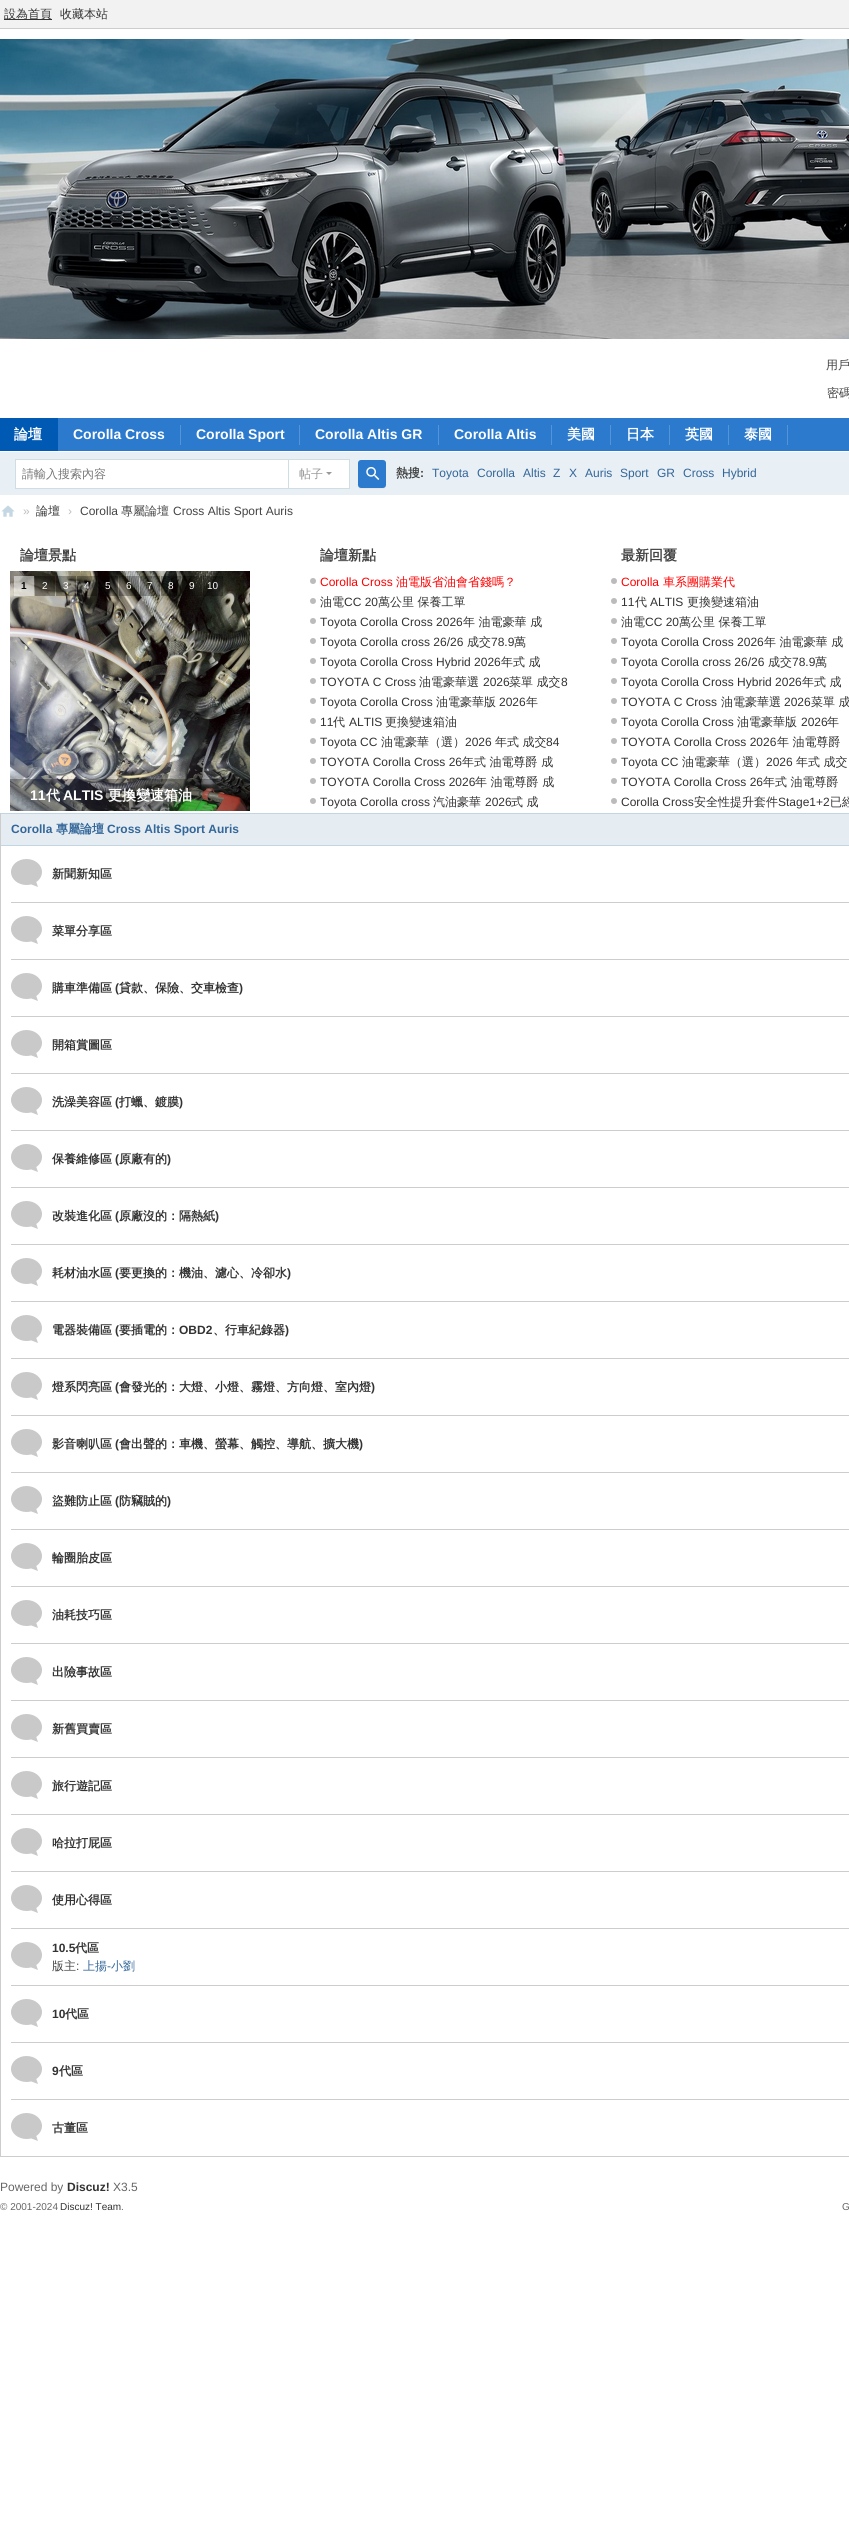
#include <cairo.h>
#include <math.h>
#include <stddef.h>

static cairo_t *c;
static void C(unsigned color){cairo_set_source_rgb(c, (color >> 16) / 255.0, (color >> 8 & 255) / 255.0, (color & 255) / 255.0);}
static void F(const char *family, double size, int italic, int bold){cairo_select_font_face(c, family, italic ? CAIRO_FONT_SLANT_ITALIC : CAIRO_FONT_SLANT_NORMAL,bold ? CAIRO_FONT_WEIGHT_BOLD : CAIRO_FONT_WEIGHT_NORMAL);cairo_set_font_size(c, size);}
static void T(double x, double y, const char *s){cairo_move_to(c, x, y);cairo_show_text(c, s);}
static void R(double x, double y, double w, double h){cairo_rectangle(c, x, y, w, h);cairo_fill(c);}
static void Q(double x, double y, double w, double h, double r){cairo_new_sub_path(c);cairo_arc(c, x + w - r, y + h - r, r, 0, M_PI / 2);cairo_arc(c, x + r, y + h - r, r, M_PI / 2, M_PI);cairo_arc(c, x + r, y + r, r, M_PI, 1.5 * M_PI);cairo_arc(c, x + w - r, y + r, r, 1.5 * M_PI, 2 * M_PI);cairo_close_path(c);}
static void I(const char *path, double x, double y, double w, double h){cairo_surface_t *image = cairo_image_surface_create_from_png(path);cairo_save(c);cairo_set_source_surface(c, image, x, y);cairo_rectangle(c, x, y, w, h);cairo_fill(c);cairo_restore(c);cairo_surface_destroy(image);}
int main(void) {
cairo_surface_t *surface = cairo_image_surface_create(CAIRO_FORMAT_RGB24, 849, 2529);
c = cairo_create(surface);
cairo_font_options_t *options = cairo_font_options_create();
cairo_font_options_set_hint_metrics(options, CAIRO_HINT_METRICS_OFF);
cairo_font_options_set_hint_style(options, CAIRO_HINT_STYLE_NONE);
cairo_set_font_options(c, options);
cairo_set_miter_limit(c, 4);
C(0xffffff);
cairo_paint(c);
C(0xf2f2f2);
R(0,0,849,28);
C(0xcdcdcd);
R(0,28,849,1);
C(0x333333);
R(4,19,48,1);
F("WenQuanYi Zen Hei Medium",12,0,0);
T(4,18,"設為首頁");
T(60,18,"收藏本站");
I("1.png",0,39,849,300);
C(0x444444);
T(826,369,"用戶");
T(827,397,"密碼");
C(0x2b7acd);
R(58,418,791,33);
C(0x005ab4);
R(0,418,58,33);
F("WenQuanYi Zen Hei",14,0,1);
C(0xffffff);
T(14,439,"論壇");
C(0x5595d7);
R(180,425,1,20);
F("Liberation Sans",14,0,1);
C(0xffffff);
T(73,439,"Corolla Cross");
C(0x5595d7);
R(299,425,1,20);
C(0xffffff);
T(196,439,"Corolla Sport");
C(0x5595d7);
R(438,425,1,20);
C(0xffffff);
T(315,439,"Corolla Altis GR");
C(0x5595d7);
R(551,425,1,20);
C(0xffffff);
T(454,439,"Corolla Altis");
C(0x5595d7);
R(610,425,1,20);
F("WenQuanYi Zen Hei",14,0,1);
C(0xffffff);
T(567,439,"美國");
C(0x5595d7);
R(669,425,1,20);
C(0xffffff);
T(626,439,"日本");
C(0x5595d7);
R(728,425,1,20);
C(0xffffff);
T(685,439,"英國");
C(0x5595d7);
R(787,425,1,20);
C(0xffffff);
T(744,439,"泰國");
C(0xe8eff5);
R(0,452,849,43);
C(0xcfdee3);
R(287,459,63,1);
R(349,459,1,30);
R(287,488,63,1);
C(0xffffff);
cairo_rectangle(c,15.5,459.5,273,29);
cairo_fill_preserve(c);
C(0xcfdee3);
cairo_set_line_width(c,1);
cairo_stroke(c);
F("WenQuanYi Zen Hei Medium",12,0,0);
C(0x757575);
T(22,478,"請輸入搜索內容");
C(0xffffff);
R(289,460,60,28);
C(0x999999);
T(299,478,"帖子");
cairo_new_path(c);
cairo_move_to(c,326,472);
cairo_line_to(c,332,472);
cairo_line_to(c,329,475);
cairo_close_path(c);
cairo_fill(c);
C(0xe5e5e5);
cairo_new_path(c);
cairo_move_to(c,358,485);
cairo_curve_to(c,358,489.5,361,489,364.5,489);
cairo_line_to(c,379.5,489);
cairo_curve_to(c,383,489,386,489.5,386,485);
cairo_curve_to(c,386,486.5,384.5,488,383,488);
cairo_line_to(c,361,488);
cairo_curve_to(c,359.5,488,358,486.5,358,485);
cairo_close_path(c);
cairo_fill(c);
C(0x2b7acd);
Q(358,460,28,28,3);
cairo_fill(c);
I("2.png",366,467,14,13);
F("WenQuanYi Zen Hei",12,0,1);
C(0x444444);
T(396,477,"熱搜");
F("Liberation Sans",12,0,1);
T(420,477,":");
F("Liberation Sans",12,0,0);
C(0x336699);
T(432,477,"Toyota");
T(477,477,"Corolla");
T(523,477,"Altis");
T(553,477,"Z");
T(569,477,"X");
T(585,477,"Auris");
T(620,477,"Sport");
T(657,477,"GR");
T(683,477,"Cross");
T(722,477,"Hybrid");
I("3.png",1,505,14,12);
C(0xbdbdbd);
T(23,515,"»");
F("WenQuanYi Zen Hei Medium",12,0,0);
C(0x333333);
T(36,515,"論壇");
F("Liberation Sans",12,0,0);
C(0xbdbdbd);
T(68,515,"›");
C(0x444444);
T(80,515,"Corolla");
F("WenQuanYi Zen Hei Medium",12,0,0);
T(121,515,"專屬論壇");
F("Liberation Sans",12,0,0);
T(173,515,"Cross Altis Sport Auris");
F("WenQuanYi Zen Hei",14,0,1);
T(20,560,"論壇景點");
I("4.png",10,571,240,240);
cairo_set_source_rgba(c,1,1,1,0.5);
R(14,576,20,20);
F("Liberation Sans",10,0,1);
C(0x000000);
T(21,589,"1");
cairo_set_source_rgba(c,0,0,0,0.3);
R(35,576,20,20);
F("Liberation Sans",10,0,0);
C(0xffffff);
T(42,589,"2");
cairo_set_source_rgba(c,0,0,0,0.3);
R(56,576,20,20);
C(0xffffff);
T(63,589,"3");
cairo_set_source_rgba(c,0,0,0,0.3);
R(77,576,20,20);
C(0xffffff);
T(84,589,"4");
cairo_set_source_rgba(c,0,0,0,0.3);
R(98,576,20,20);
C(0xffffff);
T(105,589,"5");
cairo_set_source_rgba(c,0,0,0,0.3);
R(119,576,20,20);
C(0xffffff);
T(126,589,"6");
cairo_set_source_rgba(c,0,0,0,0.3);
R(140,576,20,20);
C(0xffffff);
T(147,589,"7");
cairo_set_source_rgba(c,0,0,0,0.3);
R(161,576,20,20);
C(0xffffff);
T(168,589,"8");
cairo_set_source_rgba(c,0,0,0,0.3);
R(182,576,20,20);
C(0xffffff);
T(189,589,"9");
cairo_set_source_rgba(c,0,0,0,0.3);
R(203,576,20,20);
C(0xffffff);
T(207,589,"10");
cairo_set_source_rgba(c,0,0,0,0.3);
R(10,779,240,32);
F("Liberation Sans",14,0,1);
C(0xffffff);
T(30,800,"11");
F("WenQuanYi Zen Hei",14,0,1);
T(46,800,"代");
F("Liberation Sans",14,0,1);
T(63,800,"ALTIS");
F("WenQuanYi Zen Hei",14,0,1);
T(108,800,"更換變速箱油");
C(0x444444);
T(320,560,"論壇新點");
C(0xbbbbbb);
cairo_new_path(c);
cairo_arc(c,313,581,3,0,2 * M_PI);
cairo_fill(c);
F("Liberation Sans",12,0,0);
C(0xff0000);
T(320,586,"Corolla Cross");
F("WenQuanYi Zen Hei Medium",12,0,0);
T(396,586,"油電版省油會省錢嗎？");
C(0xbbbbbb);
cairo_new_path(c);
cairo_arc(c,313,601,3,0,2 * M_PI);
cairo_fill(c);
C(0x333333);
T(320,606,"油電");
F("Liberation Sans",12,0,0);
T(344,606,"CC 20");
F("WenQuanYi Zen Hei Medium",12,0,0);
T(378,606,"萬公里 保養工單");
C(0xbbbbbb);
cairo_new_path(c);
cairo_arc(c,313,621,3,0,2 * M_PI);
cairo_fill(c);
F("Liberation Sans",12,0,0);
C(0x333333);
T(320,626,"Toyota Corolla Cross 2026");
F("WenQuanYi Zen Hei Medium",12,0,0);
T(463,626,"年 油電豪華 成");
C(0xbbbbbb);
cairo_new_path(c);
cairo_arc(c,313,641,3,0,2 * M_PI);
cairo_fill(c);
F("Liberation Sans",12,0,0);
C(0x333333);
T(320,646,"Toyota Corolla cross 26/26");
F("WenQuanYi Zen Hei Medium",12,0,0);
T(467,646,"成交");
F("Liberation Sans",12,0,0);
T(491,646,"78.9");
F("WenQuanYi Zen Hei Medium",12,0,0);
T(514,646,"萬");
C(0xbbbbbb);
cairo_new_path(c);
cairo_arc(c,313,661,3,0,2 * M_PI);
cairo_fill(c);
F("Liberation Sans",12,0,0);
C(0x333333);
T(320,666,"Toyota Corolla Cross Hybrid 2026");
F("WenQuanYi Zen Hei Medium",12,0,0);
T(501,666,"年式 成");
C(0xbbbbbb);
cairo_new_path(c);
cairo_arc(c,313,681,3,0,2 * M_PI);
cairo_fill(c);
F("Liberation Sans",12,0,0);
C(0x333333);
T(320,686,"TOYOTA C Cross");
F("WenQuanYi Zen Hei Medium",12,0,0);
T(419,686,"油電豪華選");
F("Liberation Sans",12,0,0);
T(483,686,"2026");
F("WenQuanYi Zen Hei Medium",12,0,0);
T(509,686,"菜單 成交");
F("Liberation Sans",12,0,0);
T(561,686,"8");
C(0xbbbbbb);
cairo_new_path(c);
cairo_arc(c,313,701,3,0,2 * M_PI);
cairo_fill(c);
C(0x333333);
T(320,706,"Toyota Corolla Cross");
F("WenQuanYi Zen Hei Medium",12,0,0);
T(436,706,"油電豪華版");
F("Liberation Sans",12,0,0);
T(499,706,"2026");
F("WenQuanYi Zen Hei Medium",12,0,0);
T(526,706,"年");
C(0xbbbbbb);
cairo_new_path(c);
cairo_arc(c,313,721,3,0,2 * M_PI);
cairo_fill(c);
F("Liberation Sans",12,0,0);
C(0x333333);
T(320,726,"11");
F("WenQuanYi Zen Hei Medium",12,0,0);
T(333,726,"代");
F("Liberation Sans",12,0,0);
T(349,726,"ALTIS");
F("WenQuanYi Zen Hei Medium",12,0,0);
T(385,726,"更換變速箱油");
C(0xbbbbbb);
cairo_new_path(c);
cairo_arc(c,313,741,3,0,2 * M_PI);
cairo_fill(c);
F("Liberation Sans",12,0,0);
C(0x333333);
T(320,746,"Toyota CC");
F("WenQuanYi Zen Hei Medium",12,0,0);
T(381,746,"油電豪華（選）");
F("Liberation Sans",12,0,0);
T(465,746,"2026");
F("WenQuanYi Zen Hei Medium",12,0,0);
T(495,746,"年式 成交");
F("Liberation Sans",12,0,0);
T(546,746,"84");
C(0xbbbbbb);
cairo_new_path(c);
cairo_arc(c,313,761,3,0,2 * M_PI);
cairo_fill(c);
C(0x333333);
T(320,766,"TOYOTA Corolla Cross 26");
F("WenQuanYi Zen Hei Medium",12,0,0);
T(462,766,"年式 油電尊爵 成");
C(0xbbbbbb);
cairo_new_path(c);
cairo_arc(c,313,781,3,0,2 * M_PI);
cairo_fill(c);
F("Liberation Sans",12,0,0);
C(0x333333);
T(320,786,"TOYOTA Corolla Cross 2026");
F("WenQuanYi Zen Hei Medium",12,0,0);
T(475,786,"年 油電尊爵 成");
C(0xbbbbbb);
cairo_new_path(c);
cairo_arc(c,313,801,3,0,2 * M_PI);
cairo_fill(c);
F("Liberation Sans",12,0,0);
C(0x333333);
T(320,806,"Toyota Corolla cross");
F("WenQuanYi Zen Hei Medium",12,0,0);
T(433,806,"汽油豪華");
F("Liberation Sans",12,0,0);
T(485,806,"2026");
F("WenQuanYi Zen Hei Medium",12,0,0);
T(511,806,"式 成");
F("WenQuanYi Zen Hei",14,0,1);
C(0x444444);
T(621,560,"最新回覆");
C(0xbbbbbb);
cairo_new_path(c);
cairo_arc(c,614,581,3,0,2 * M_PI);
cairo_fill(c);
F("Liberation Sans",12,0,0);
C(0xff0000);
T(621,586,"Corolla");
F("WenQuanYi Zen Hei Medium",12,0,0);
T(663,586,"車系團購業代");
C(0xbbbbbb);
cairo_new_path(c);
cairo_arc(c,614,601,3,0,2 * M_PI);
cairo_fill(c);
F("Liberation Sans",12,0,0);
C(0x333333);
T(621,606,"11");
F("WenQuanYi Zen Hei Medium",12,0,0);
T(635,606,"代");
F("Liberation Sans",12,0,0);
T(650,606,"ALTIS");
F("WenQuanYi Zen Hei Medium",12,0,0);
T(687,606,"更換變速箱油");
C(0xbbbbbb);
cairo_new_path(c);
cairo_arc(c,614,621,3,0,2 * M_PI);
cairo_fill(c);
C(0x333333);
T(621,626,"油電");
F("Liberation Sans",12,0,0);
T(645,626,"CC 20");
F("WenQuanYi Zen Hei Medium",12,0,0);
T(679,626,"萬公里 保養工單");
C(0xbbbbbb);
cairo_new_path(c);
cairo_arc(c,614,641,3,0,2 * M_PI);
cairo_fill(c);
F("Liberation Sans",12,0,0);
C(0x333333);
T(621,646,"Toyota Corolla Cross 2026");
F("WenQuanYi Zen Hei Medium",12,0,0);
T(764,646,"年 油電豪華 成");
C(0xbbbbbb);
cairo_new_path(c);
cairo_arc(c,614,661,3,0,2 * M_PI);
cairo_fill(c);
F("Liberation Sans",12,0,0);
C(0x333333);
T(621,666,"Toyota Corolla cross 26/26");
F("WenQuanYi Zen Hei Medium",12,0,0);
T(768,666,"成交");
F("Liberation Sans",12,0,0);
T(792,666,"78.9");
F("WenQuanYi Zen Hei Medium",12,0,0);
T(815,666,"萬");
C(0xbbbbbb);
cairo_new_path(c);
cairo_arc(c,614,681,3,0,2 * M_PI);
cairo_fill(c);
F("Liberation Sans",12,0,0);
C(0x333333);
T(621,686,"Toyota Corolla Cross Hybrid 2026");
F("WenQuanYi Zen Hei Medium",12,0,0);
T(802,686,"年式 成");
C(0xbbbbbb);
cairo_new_path(c);
cairo_arc(c,614,701,3,0,2 * M_PI);
cairo_fill(c);
F("Liberation Sans",12,0,0);
C(0x333333);
T(621,706,"TOYOTA C Cross");
F("WenQuanYi Zen Hei Medium",12,0,0);
T(721,706,"油電豪華選");
F("Liberation Sans",12,0,0);
T(784,706,"2026");
F("WenQuanYi Zen Hei Medium",12,0,0);
T(811,706,"菜單 成");
C(0xbbbbbb);
cairo_new_path(c);
cairo_arc(c,614,721,3,0,2 * M_PI);
cairo_fill(c);
F("Liberation Sans",12,0,0);
C(0x333333);
T(621,726,"Toyota Corolla Cross");
F("WenQuanYi Zen Hei Medium",12,0,0);
T(737,726,"油電豪華版");
F("Liberation Sans",12,0,0);
T(801,726,"2026");
F("WenQuanYi Zen Hei Medium",12,0,0);
T(827,726,"年");
C(0xbbbbbb);
cairo_new_path(c);
cairo_arc(c,614,741,3,0,2 * M_PI);
cairo_fill(c);
F("Liberation Sans",12,0,0);
C(0x333333);
T(621,746,"TOYOTA Corolla Cross 2026");
F("WenQuanYi Zen Hei Medium",12,0,0);
T(777,746,"年 油電尊爵");
C(0xbbbbbb);
cairo_new_path(c);
cairo_arc(c,614,761,3,0,2 * M_PI);
cairo_fill(c);
F("Liberation Sans",12,0,0);
C(0x333333);
T(621,766,"Toyota CC");
F("WenQuanYi Zen Hei Medium",12,0,0);
T(682,766,"油電豪華（選）");
F("Liberation Sans",12,0,0);
T(766,766,"2026");
F("WenQuanYi Zen Hei Medium",12,0,0);
T(796,766,"年式 成交");
C(0xbbbbbb);
cairo_new_path(c);
cairo_arc(c,614,781,3,0,2 * M_PI);
cairo_fill(c);
F("Liberation Sans",12,0,0);
C(0x333333);
T(621,786,"TOYOTA Corolla Cross 26");
F("WenQuanYi Zen Hei Medium",12,0,0);
T(763,786,"年式 油電尊爵");
C(0xbbbbbb);
cairo_new_path(c);
cairo_arc(c,614,801,3,0,2 * M_PI);
cairo_fill(c);
F("Liberation Sans",12,0,0);
C(0x333333);
T(621,806,"Corolla Cross");
F("WenQuanYi Zen Hei Medium",12,0,0);
T(694,806,"安全性提升套件");
F("Liberation Sans",12,0,0);
T(778,806,"Stage1+2");
F("WenQuanYi Zen Hei Medium",12,0,0);
T(830,806,"已經");
C(0xcdcdcd);
R(0,2156,849,1);
R(0,813,1,1344);
C(0xe5edf2);
R(1,814,848,31);
C(0xc2d5e3);
R(1,813,848,1);
R(1,845,848,1);
F("Liberation Sans",12,0,1);
C(0x336699);
T(11,833,"Corolla");
F("WenQuanYi Zen Hei",12,0,1);
T(56,833,"專屬論壇");
F("Liberation Sans",12,0,1);
T(107,833,"Cross Altis Sport Auris");
I("5.png",11,859,31,28);
F("WenQuanYi Zen Hei",12,0,1);
C(0x333333);
T(52,878,"新聞新知區");
C(0xcdcdcd);
R(11,902,838,1);
I("5.png",11,916,31,28);
C(0x333333);
T(52,935,"菜單分享區");
C(0xcdcdcd);
R(11,959,838,1);
I("5.png",11,973,31,28);
C(0x333333);
T(52,992,"購車準備區");
F("Liberation Sans",12,0,1);
T(115,992,"(");
F("WenQuanYi Zen Hei",12,0,1);
T(119,992,"貸款、保險、交車檢查");
F("Liberation Sans",12,0,1);
T(239,992,")");
C(0xcdcdcd);
R(11,1016,838,1);
I("5.png",11,1030,31,28);
F("WenQuanYi Zen Hei",12,0,1);
C(0x333333);
T(52,1049,"開箱賞圖區");
C(0xcdcdcd);
R(11,1073,838,1);
I("5.png",11,1087,31,28);
C(0x333333);
T(52,1106,"洗澡美容區");
F("Liberation Sans",12,0,1);
T(115,1106,"(");
F("WenQuanYi Zen Hei",12,0,1);
T(119,1106,"打蠟、鍍膜");
F("Liberation Sans",12,0,1);
T(179,1106,")");
C(0xcdcdcd);
R(11,1130,838,1);
I("5.png",11,1144,31,28);
F("WenQuanYi Zen Hei",12,0,1);
C(0x333333);
T(52,1163,"保養維修區");
F("Liberation Sans",12,0,1);
T(115,1163,"(");
F("WenQuanYi Zen Hei",12,0,1);
T(119,1163,"原廠有的");
F("Liberation Sans",12,0,1);
T(167,1163,")");
C(0xcdcdcd);
R(11,1187,838,1);
I("5.png",11,1201,31,28);
F("WenQuanYi Zen Hei",12,0,1);
C(0x333333);
T(52,1220,"改裝進化區");
F("Liberation Sans",12,0,1);
T(115,1220,"(");
F("WenQuanYi Zen Hei",12,0,1);
T(119,1220,"原廠沒的：隔熱紙");
F("Liberation Sans",12,0,1);
T(215,1220,")");
C(0xcdcdcd);
R(11,1244,838,1);
I("5.png",11,1258,31,28);
F("WenQuanYi Zen Hei",12,0,1);
C(0x333333);
T(52,1277,"耗材油水區");
F("Liberation Sans",12,0,1);
T(115,1277,"(");
F("WenQuanYi Zen Hei",12,0,1);
T(119,1277,"要更換的：機油、濾心、冷卻水");
F("Liberation Sans",12,0,1);
T(287,1277,")");
C(0xcdcdcd);
R(11,1301,838,1);
I("5.png",11,1315,31,28);
F("WenQuanYi Zen Hei",12,0,1);
C(0x333333);
T(52,1334,"電器裝備區");
F("Liberation Sans",12,0,1);
T(115,1334,"(");
F("WenQuanYi Zen Hei",12,0,1);
T(119,1334,"要插電的：");
F("Liberation Sans",12,0,1);
T(179,1334,"OBD2");
F("WenQuanYi Zen Hei",12,0,1);
T(213,1334,"、行車紀錄器");
F("Liberation Sans",12,0,1);
T(285,1334,")");
C(0xcdcdcd);
R(11,1358,838,1);
I("5.png",11,1372,31,28);
F("WenQuanYi Zen Hei",12,0,1);
C(0x333333);
T(52,1391,"燈系閃亮區");
F("Liberation Sans",12,0,1);
T(115,1391,"(");
F("WenQuanYi Zen Hei",12,0,1);
T(119,1391,"會發光的：大燈、小燈、霧燈、方向燈、室內燈");
F("Liberation Sans",12,0,1);
T(371,1391,")");
C(0xcdcdcd);
R(11,1415,838,1);
I("5.png",11,1429,31,28);
F("WenQuanYi Zen Hei",12,0,1);
C(0x333333);
T(52,1448,"影音喇叭區");
F("Liberation Sans",12,0,1);
T(115,1448,"(");
F("WenQuanYi Zen Hei",12,0,1);
T(119,1448,"會出聲的：車機、螢幕、觸控、導航、擴大機");
F("Liberation Sans",12,0,1);
T(359,1448,")");
C(0xcdcdcd);
R(11,1472,838,1);
I("5.png",11,1486,31,28);
F("WenQuanYi Zen Hei",12,0,1);
C(0x333333);
T(52,1505,"盜難防止區");
F("Liberation Sans",12,0,1);
T(115,1505,"(");
F("WenQuanYi Zen Hei",12,0,1);
T(119,1505,"防竊賊的");
F("Liberation Sans",12,0,1);
T(167,1505,")");
C(0xcdcdcd);
R(11,1529,838,1);
I("5.png",11,1543,31,28);
F("WenQuanYi Zen Hei",12,0,1);
C(0x333333);
T(52,1562,"輪圈胎皮區");
C(0xcdcdcd);
R(11,1586,838,1);
I("5.png",11,1600,31,28);
C(0x333333);
T(52,1619,"油耗技巧區");
C(0xcdcdcd);
R(11,1643,838,1);
I("5.png",11,1657,31,28);
C(0x333333);
T(52,1676,"出險事故區");
C(0xcdcdcd);
R(11,1700,838,1);
I("5.png",11,1714,31,28);
C(0x333333);
T(52,1733,"新舊買賣區");
C(0xcdcdcd);
R(11,1757,838,1);
I("5.png",11,1771,31,28);
C(0x333333);
T(52,1790,"旅行遊記區");
C(0xcdcdcd);
R(11,1814,838,1);
I("5.png",11,1828,31,28);
C(0x333333);
T(52,1847,"哈拉打屁區");
C(0xcdcdcd);
R(11,1871,838,1);
I("5.png",11,1885,31,28);
C(0x333333);
T(52,1904,"使用心得區");
C(0xcdcdcd);
R(11,1928,838,1);
I("5.png",11,1942,31,28);
F("Liberation Sans",12,0,1);
C(0x333333);
T(52,1952,"10.5");
F("WenQuanYi Zen Hei",12,0,1);
T(75,1952,"代區");
F("WenQuanYi Zen Hei Medium",12,0,0);
C(0x444444);
T(52,1970,"版主");
F("Liberation Sans",12,0,0);
T(76,1970,":");
F("WenQuanYi Zen Hei Medium",12,0,0);
C(0x336699);
T(83,1970,"上揚");
F("Liberation Sans",12,0,0);
T(107,1970,"-");
F("WenQuanYi Zen Hei Medium",12,0,0);
T(111,1970,"小劉");
C(0xcdcdcd);
R(11,1985,838,1);
I("5.png",11,1999,31,28);
F("Liberation Sans",12,0,1);
C(0x333333);
T(52,2018,"10");
F("WenQuanYi Zen Hei",12,0,1);
T(65,2018,"代區");
C(0xcdcdcd);
R(11,2042,838,1);
I("5.png",11,2056,31,28);
F("Liberation Sans",12,0,1);
C(0x333333);
T(52,2075,"9");
F("WenQuanYi Zen Hei",12,0,1);
T(59,2075,"代區");
C(0xcdcdcd);
R(11,2099,838,1);
I("5.png",11,2113,31,28);
C(0x333333);
T(52,2132,"古董區");
F("Liberation Sans",12,0,0);
C(0x666666);
T(0,2191,"Powered by");
F("Liberation Sans",12,0,1);
C(0x333333);
T(67,2191,"Discuz!");
F("Liberation Sans",12,0,0);
C(0x666666);
T(113,2191,"X3.5");
F("Liberation Sans",10,0,0);
T(0,2210,"© 2001-2024");
C(0x333333);
T(60,2210,"Discuz! Team");
C(0x666666);
T(121,2210,".");
T(842,2210,"G");
cairo_surface_write_to_png(surface, "o.png");
cairo_font_options_destroy(options);
cairo_destroy(c);
cairo_surface_destroy(surface);
return 0;
}
